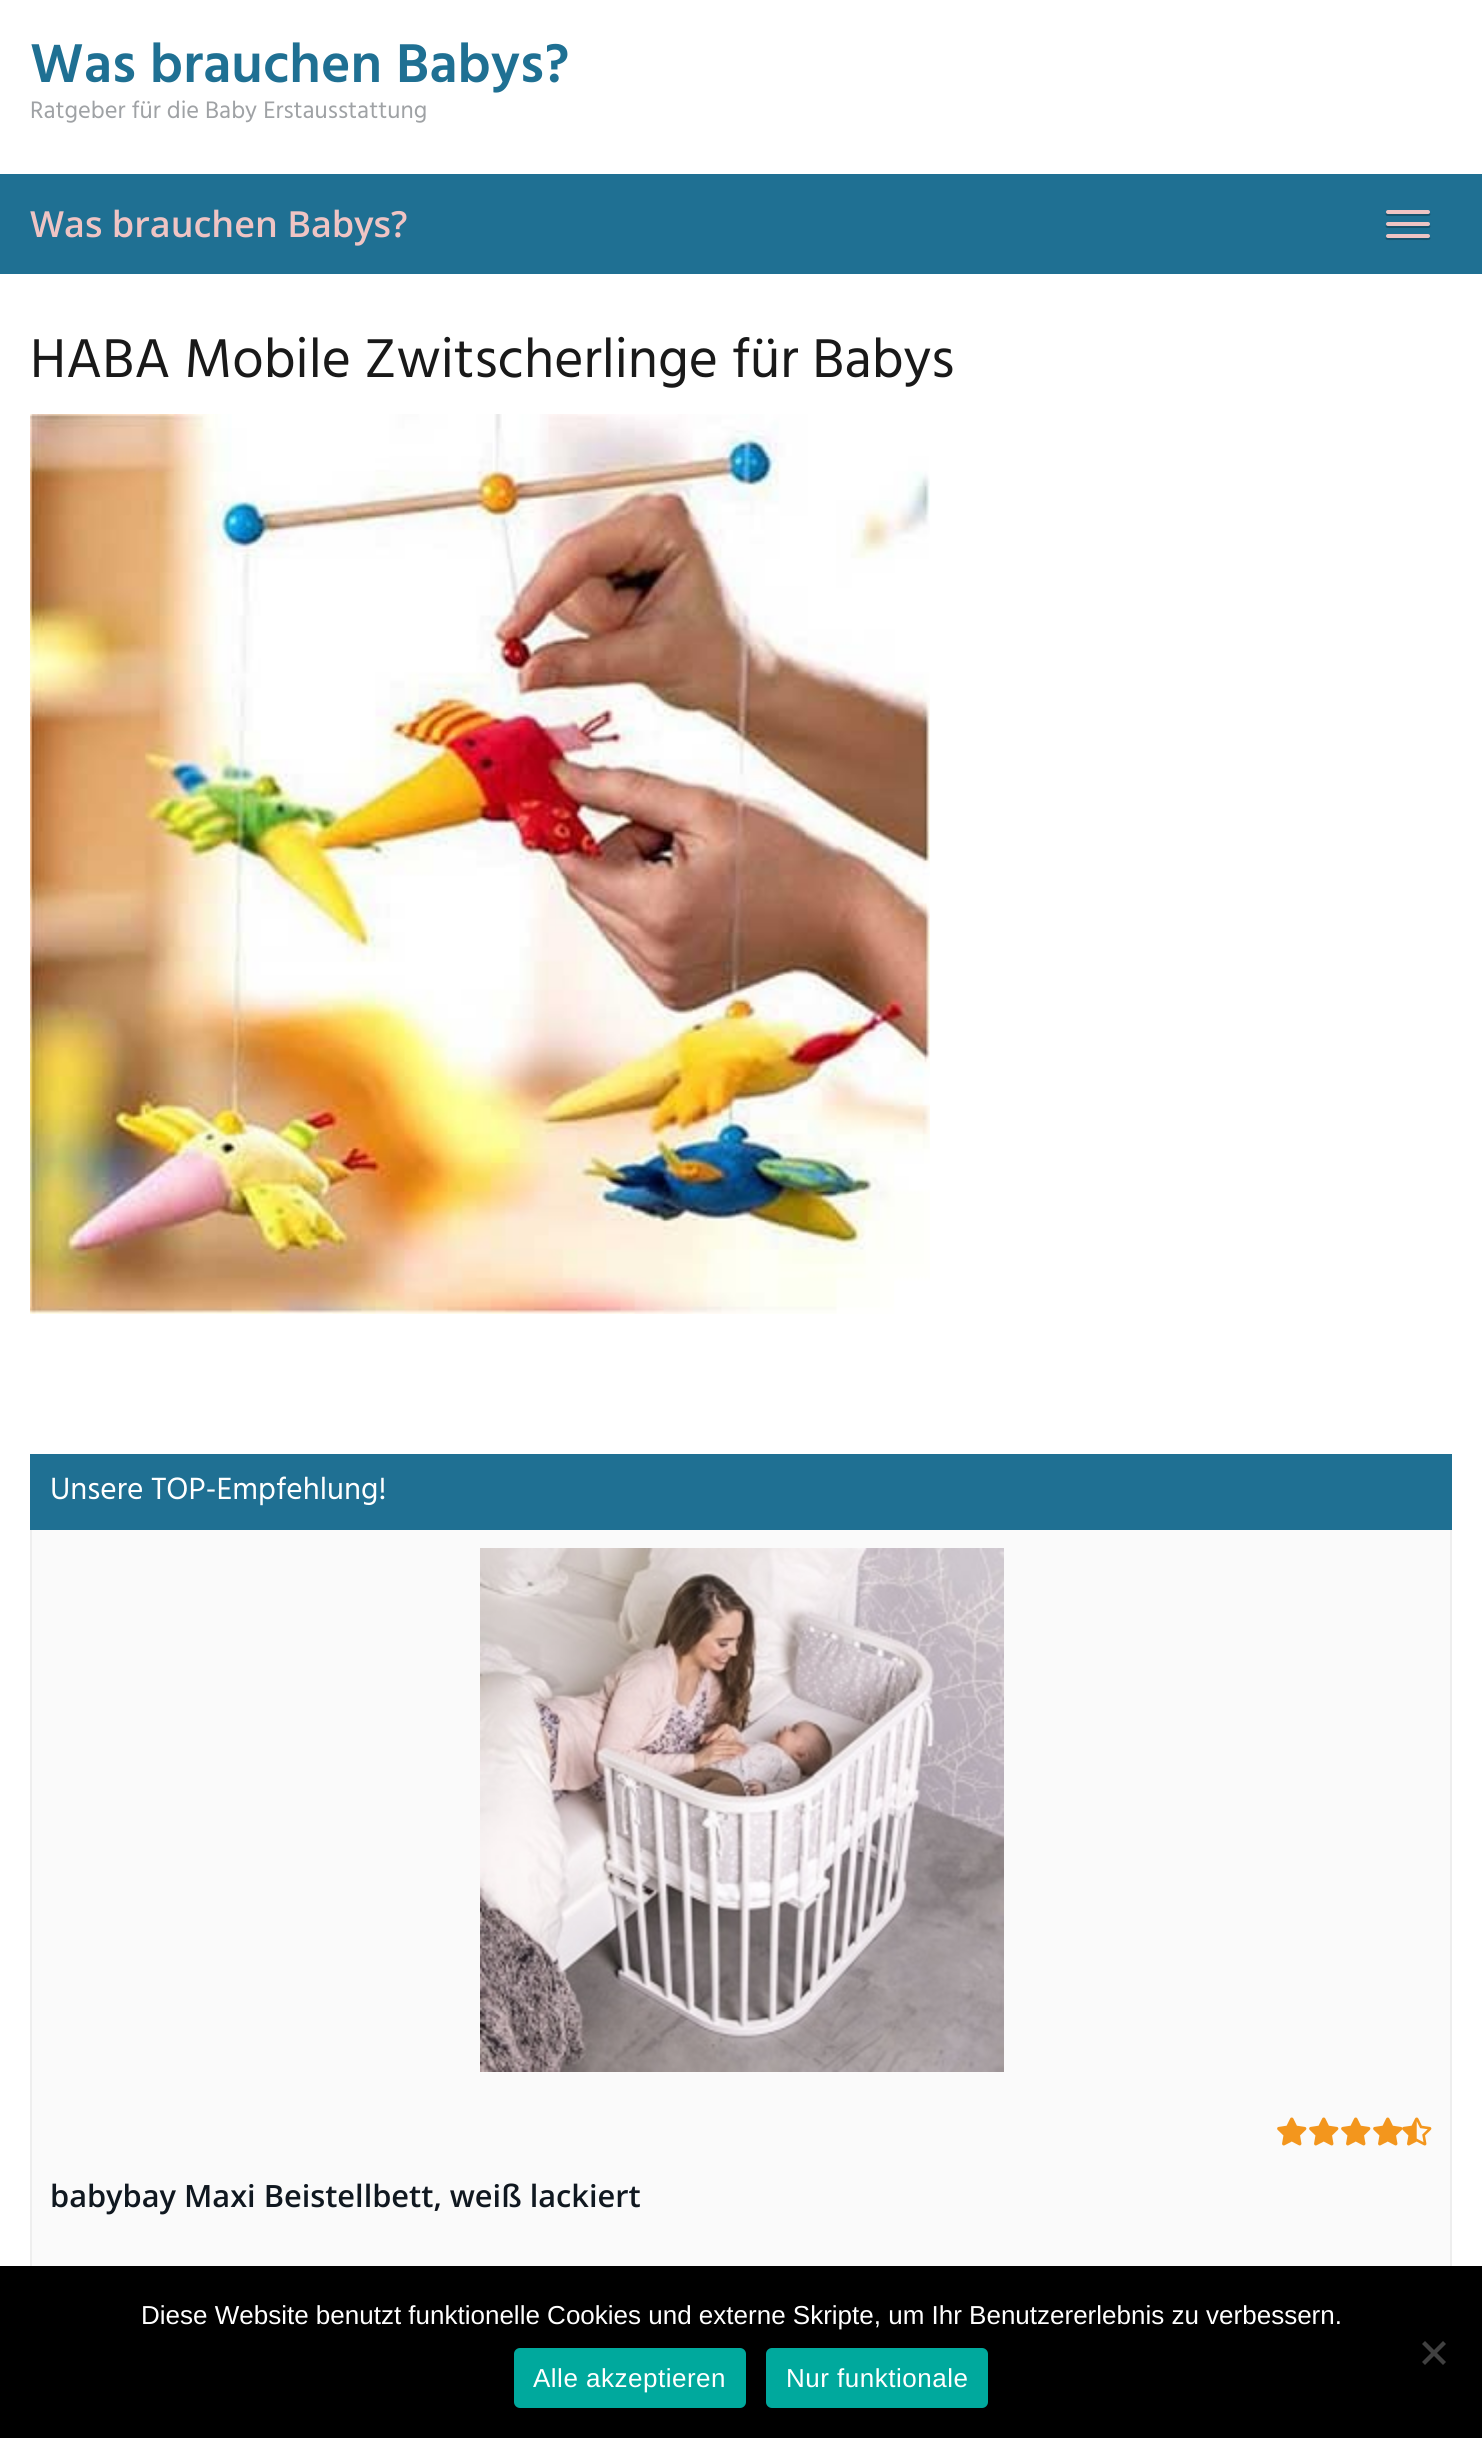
#include <cairo.h>
#include <math.h>
#include <stddef.h>

static cairo_t *c;
static void C(unsigned color){cairo_set_source_rgb(c, (color >> 16) / 255.0, (color >> 8 & 255) / 255.0, (color & 255) / 255.0);}
static void F(const char *family, double size, int italic, int bold){cairo_select_font_face(c, family, italic ? CAIRO_FONT_SLANT_ITALIC : CAIRO_FONT_SLANT_NORMAL,bold ? CAIRO_FONT_WEIGHT_BOLD : CAIRO_FONT_WEIGHT_NORMAL);cairo_set_font_size(c, size);}
static void T(double x, double y, const char *s){cairo_move_to(c, x, y);cairo_show_text(c, s);}
static void L(double x, double y, const char *s, double letter, double word){cairo_move_to(c, x, y);while (*s) {char ch[5] = {0};int n = 0;do ch[n++] = *s++; while ((*s & 0xC0) == 0x80);cairo_show_text(c, ch);cairo_rel_move_to(c, letter + word * (*ch == ' '), 0);}}
static void R(double x, double y, double w, double h){cairo_rectangle(c, x, y, w, h);cairo_fill(c);}
static void Q(double x, double y, double w, double h, double r){cairo_new_sub_path(c);cairo_arc(c, x + w - r, y + h - r, r, 0, M_PI / 2);cairo_arc(c, x + r, y + h - r, r, M_PI / 2, M_PI);cairo_arc(c, x + r, y + r, r, M_PI, 1.5 * M_PI);cairo_arc(c, x + w - r, y + r, r, 1.5 * M_PI, 2 * M_PI);cairo_close_path(c);}
static void I(const char *path, double x, double y, double w, double h){cairo_surface_t *image = cairo_image_surface_create_from_png(path);cairo_save(c);cairo_set_source_surface(c, image, x, y);cairo_rectangle(c, x, y, w, h);cairo_fill(c);cairo_restore(c);cairo_surface_destroy(image);}
int main(void) {
cairo_surface_t *surface = cairo_image_surface_create(CAIRO_FORMAT_RGB24, 1482, 2438);
c = cairo_create(surface);
cairo_font_options_t *options = cairo_font_options_create();
cairo_font_options_set_hint_metrics(options, CAIRO_HINT_METRICS_OFF);
cairo_font_options_set_hint_style(options, CAIRO_HINT_STYLE_NONE);
cairo_set_font_options(c, options);
cairo_set_miter_limit(c, 4);
C(0xffffff);
cairo_paint(c);
F("Hind SemiBold",56,0,0);
C(0x1f7093);
T(30,82,"Was brauchen Babys?");
F("Hind",24.5,0,0);
C(0x9fa2a5);
T(30,118,"Ratgeber für die Baby Erstausstattung");
C(0x1f7093);
R(0,174,1482,100);
F("Open Sans SemiBold",36,0,0);
C(0xefc4c4);
T(30,237,"Was brauchen Babys?");
C(0x17546e);
cairo_new_path(c);
cairo_move_to(c,1386,213);
cairo_curve_to(c,1384,217,1390,216,1395,216);
cairo_line_to(c,1421,216);
cairo_curve_to(c,1426,216,1432,217,1430,213);
cairo_line_to(c,1428,214);
cairo_line_to(c,1388,214);
cairo_close_path(c);
cairo_fill(c);
C(0xefc4c4);
Q(1386,210,44,4,2);
cairo_fill(c);
C(0x17546e);
cairo_new_path(c);
cairo_move_to(c,1386,225);
cairo_curve_to(c,1384,229,1390,228,1395,228);
cairo_line_to(c,1421,228);
cairo_curve_to(c,1426,228,1432,229,1430,225);
cairo_line_to(c,1428,226);
cairo_line_to(c,1388,226);
cairo_close_path(c);
cairo_fill(c);
C(0xefc4c4);
Q(1386,222,44,4,2);
cairo_fill(c);
C(0x17546e);
cairo_new_path(c);
cairo_move_to(c,1386,237);
cairo_curve_to(c,1384,241,1390,240,1395,240);
cairo_line_to(c,1421,240);
cairo_curve_to(c,1426,240,1432,241,1430,237);
cairo_line_to(c,1428,238);
cairo_line_to(c,1388,238);
cairo_close_path(c);
cairo_fill(c);
C(0xefc4c4);
Q(1386,234,44,4,2);
cairo_fill(c);
F("Hind",56,0,0);
C(0x191919);
T(30,377,"HABA Mobile Zwitscherlinge für Babys");
I("1.png",30,414,900,900);
C(0xfafafa);
R(32,1530,1418,736);
cairo_rectangle(c,31,1455,1420,924);
C(0xeeeeee);
cairo_stroke(c);
C(0x1f7093);
R(30,1454,1422,76);
F("Hind",31.5,0,0);
C(0xffffff);
T(50,1499,"Unsere TOP-Empfehlung!");
I("2.png",480,1548,524,524);
I("3.png",1277,2117,30,29);
I("3.png",1309,2117,30,29);
I("3.png",1341,2117,30,29);
I("3.png",1373,2117,30,29);
I("4.png",1402,2117,30,29);
F("Open Sans SemiBold",30.75,0,0);
C(0x101820);
T(50,2207,"babybay Maxi Beistellbett, weiß lackiert");
C(0x000000);
R(0,2266,1482,172);
F("Liberation Sans",26,0,0);
C(0xffffff);
T(141,2324,"Diese Website benutzt funktionelle Cookies und externe Skripte, um Ihr Benutzererlebnis zu verbessern.");
C(0x404040);
cairo_new_path(c);
cairo_move_to(c,1443,2341);
cairo_line_to(c,1446,2344);
cairo_line_to(c,1425,2365);
cairo_line_to(c,1422,2362);
cairo_close_path(c);
cairo_fill(c);
cairo_new_path(c);
cairo_move_to(c,1422,2344);
cairo_line_to(c,1425,2341);
cairo_line_to(c,1446,2362);
cairo_line_to(c,1443,2365);
cairo_close_path(c);
cairo_fill(c);
C(0x00a99d);
Q(514,2348,232,60,6);
cairo_fill(c);
C(0xffffff);
L(533,2387,"Alle akzeptieren",.5,0);
C(0x00a99d);
Q(766,2348,222,60,6);
cairo_fill(c);
C(0xffffff);
L(786,2387,"Nur funktionale",.5,0);
cairo_surface_write_to_png(surface, "o.png");
cairo_font_options_destroy(options);
cairo_destroy(c);
cairo_surface_destroy(surface);
return 0;
}
